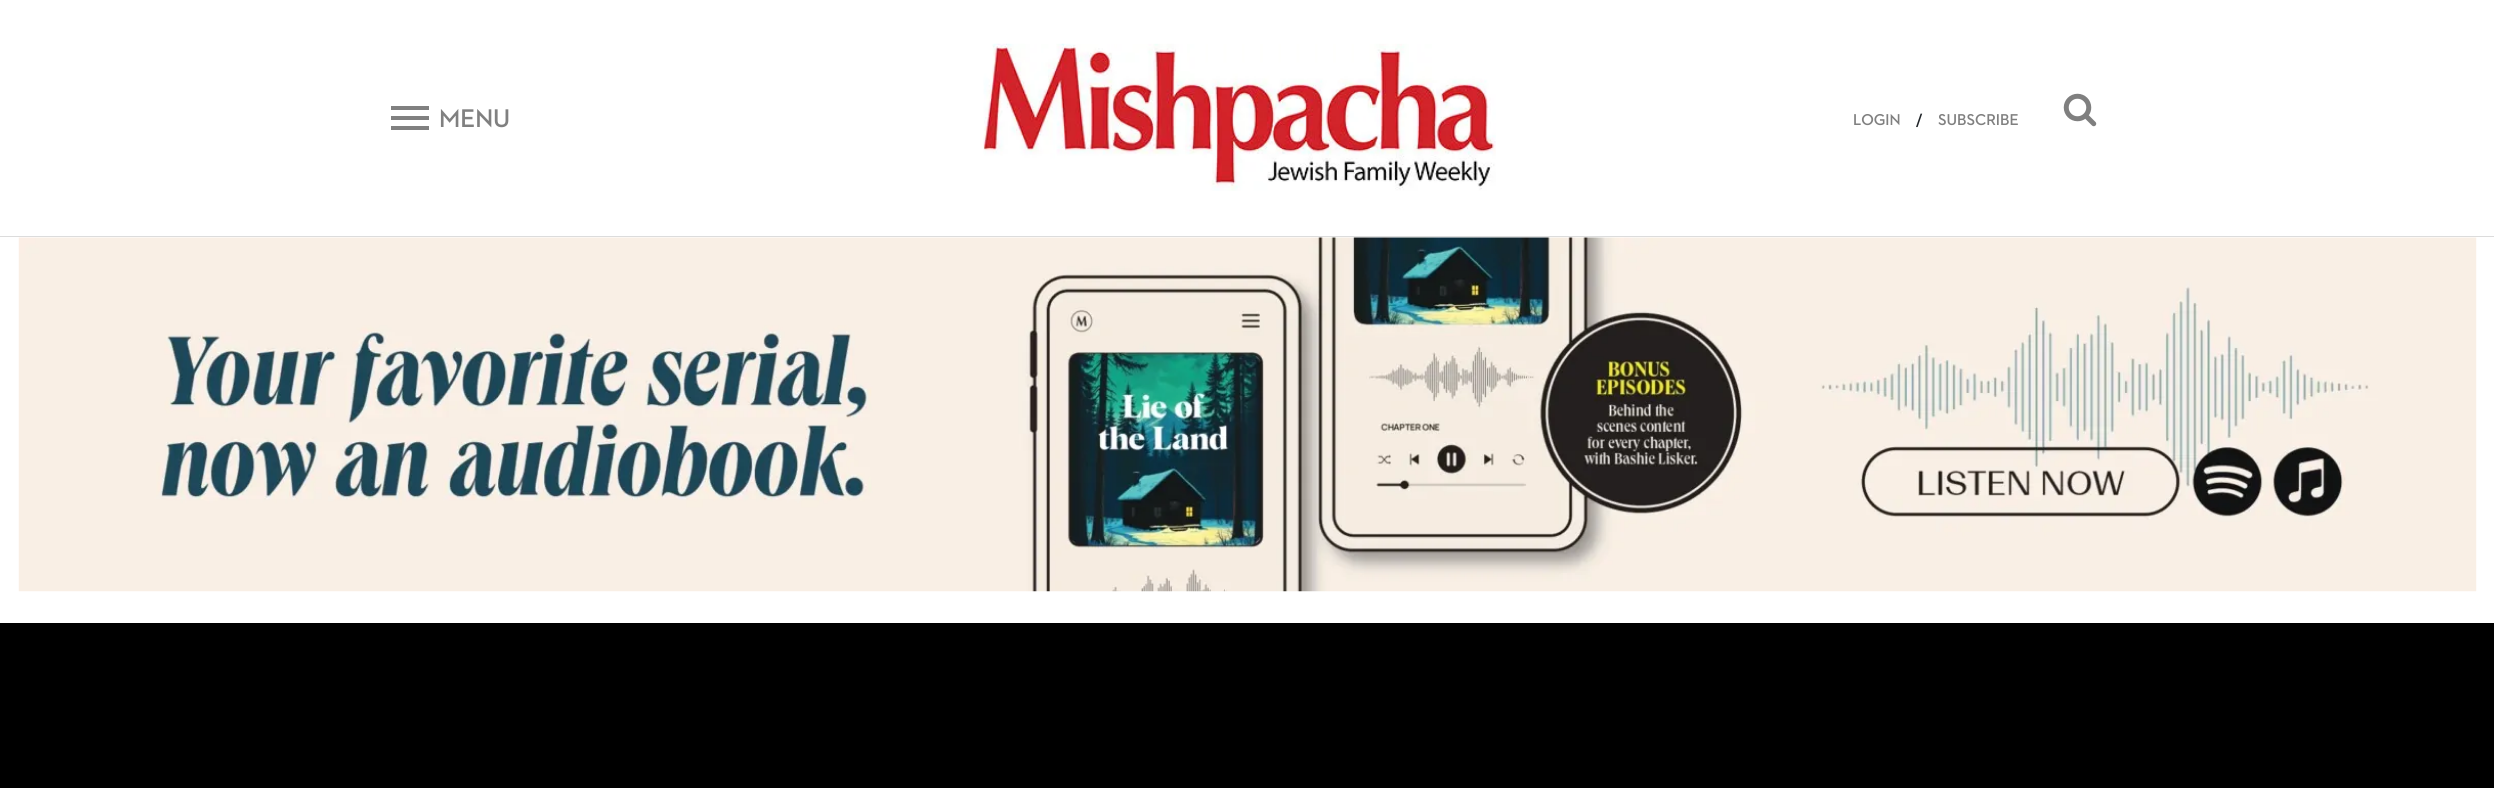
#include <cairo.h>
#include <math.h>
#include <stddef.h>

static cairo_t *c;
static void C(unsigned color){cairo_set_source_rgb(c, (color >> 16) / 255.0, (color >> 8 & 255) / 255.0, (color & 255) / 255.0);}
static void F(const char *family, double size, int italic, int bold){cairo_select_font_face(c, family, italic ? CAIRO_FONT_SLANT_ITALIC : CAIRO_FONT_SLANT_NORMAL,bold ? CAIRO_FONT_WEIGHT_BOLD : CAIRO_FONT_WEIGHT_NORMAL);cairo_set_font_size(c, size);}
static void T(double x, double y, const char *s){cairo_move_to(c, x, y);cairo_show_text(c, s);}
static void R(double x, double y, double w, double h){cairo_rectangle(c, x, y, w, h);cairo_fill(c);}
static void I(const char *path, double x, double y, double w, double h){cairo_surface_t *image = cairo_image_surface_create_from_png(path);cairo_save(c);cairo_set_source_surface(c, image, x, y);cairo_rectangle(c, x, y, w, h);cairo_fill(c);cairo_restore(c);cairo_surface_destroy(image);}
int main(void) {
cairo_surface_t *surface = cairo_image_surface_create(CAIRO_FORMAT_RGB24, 2494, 788);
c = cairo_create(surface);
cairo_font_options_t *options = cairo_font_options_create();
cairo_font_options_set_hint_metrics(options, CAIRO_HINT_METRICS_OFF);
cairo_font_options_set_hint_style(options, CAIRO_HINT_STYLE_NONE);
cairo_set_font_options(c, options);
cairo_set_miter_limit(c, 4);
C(0xffffff);
cairo_paint(c);
C(0xdcdcdc);
R(0,236,2494,1);
C(0x808080);
R(391,116,38,4);
R(391,106,38,4);
R(391,126,38,4);
F("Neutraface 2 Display",26,0,1);
T(439,127,"MENU");
I("1.png",983,43,513,148);
F("Neutraface 2 Display",16,0,1);
T(1853,125,"LOGIN");
C(0x212529);
T(1916,125,"/");
C(0x808080);
T(1938,125,"SUBSCRIBE");
I("2.png",2063,93,34,34);
I("3.png",18,237,2459,355);
C(0x000000);
R(0,623,2494,165);
cairo_surface_write_to_png(surface, "o.png");
cairo_font_options_destroy(options);
cairo_destroy(c);
cairo_surface_destroy(surface);
return 0;
}
